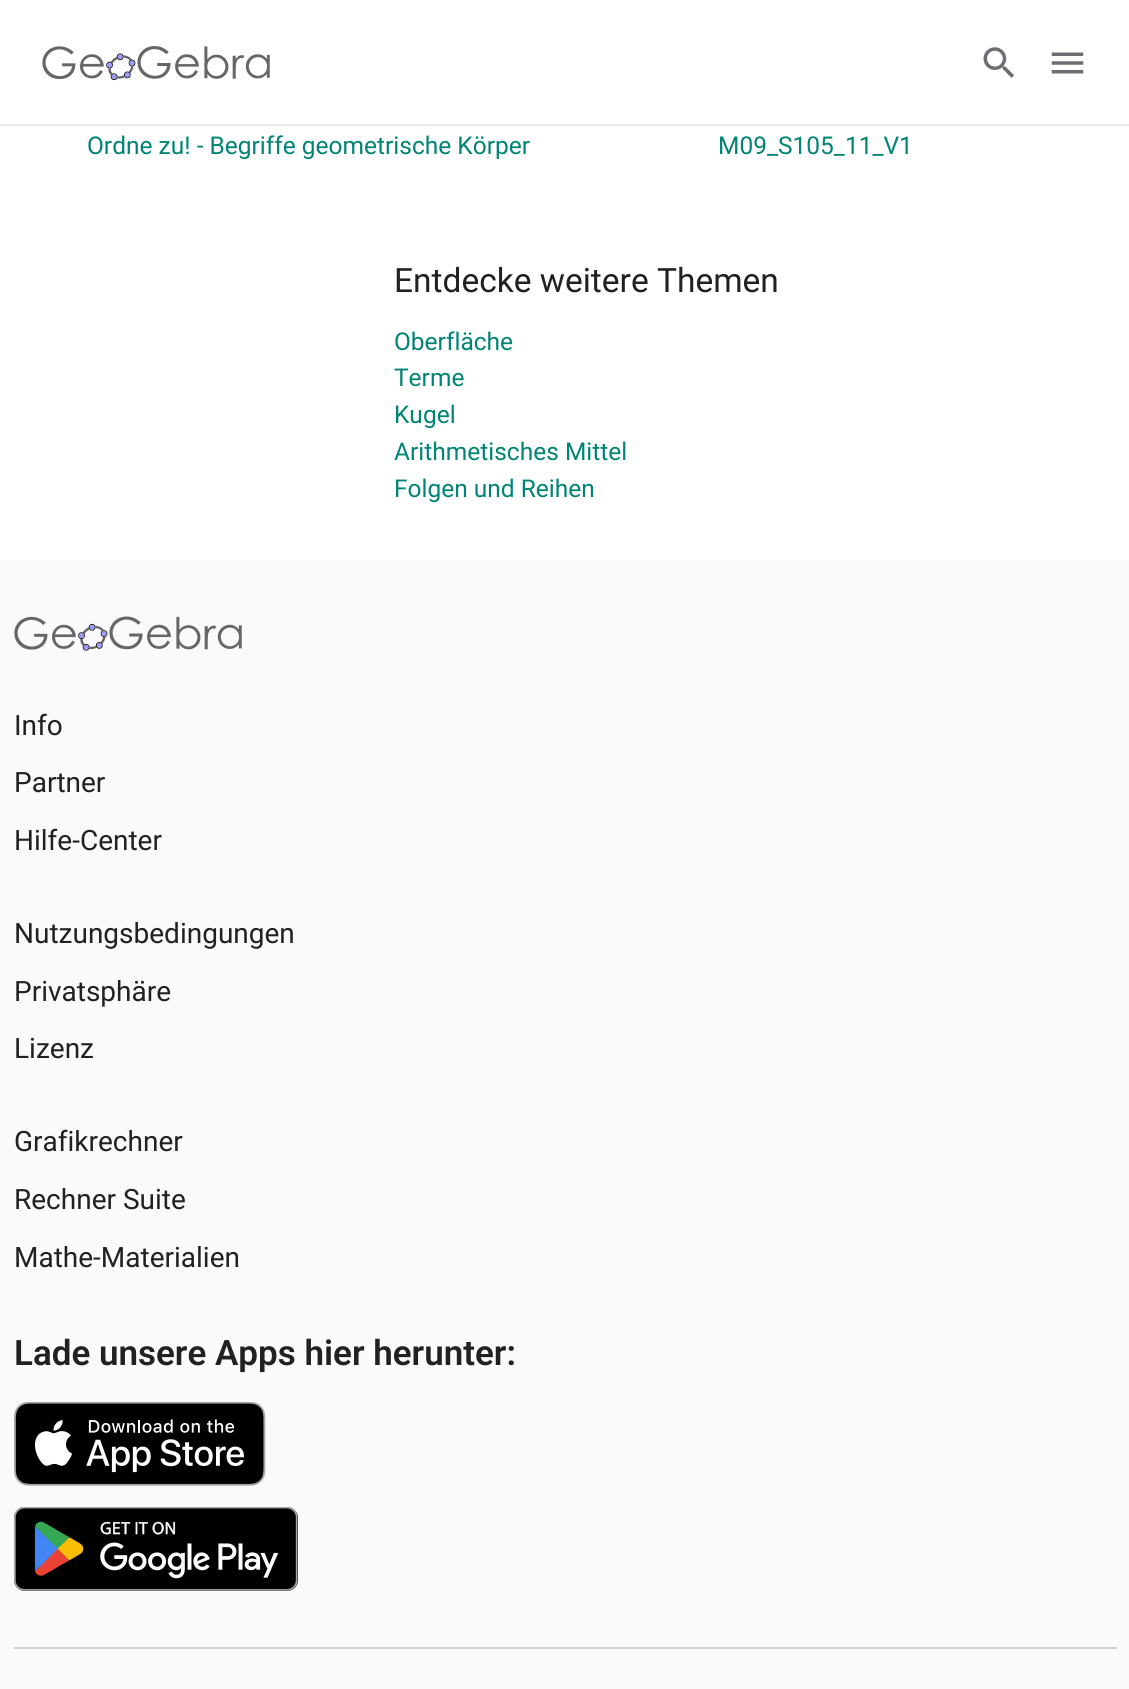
#include <cairo.h>
#include <math.h>
#include <stddef.h>

static cairo_t *c;
static void C(unsigned color){cairo_set_source_rgb(c, (color >> 16) / 255.0, (color >> 8 & 255) / 255.0, (color & 255) / 255.0);}
static void F(const char *family, double size, int italic, int bold){cairo_select_font_face(c, family, italic ? CAIRO_FONT_SLANT_ITALIC : CAIRO_FONT_SLANT_NORMAL,bold ? CAIRO_FONT_WEIGHT_BOLD : CAIRO_FONT_WEIGHT_NORMAL);cairo_set_font_size(c, size);}
static void T(double x, double y, const char *s){cairo_move_to(c, x, y);cairo_show_text(c, s);}
static void R(double x, double y, double w, double h){cairo_rectangle(c, x, y, w, h);cairo_fill(c);}
static void I(const char *path, double x, double y, double w, double h){cairo_surface_t *image = cairo_image_surface_create_from_png(path);cairo_save(c);cairo_set_source_surface(c, image, x, y);cairo_rectangle(c, x, y, w, h);cairo_fill(c);cairo_restore(c);cairo_surface_destroy(image);}
int main(void) {
cairo_surface_t *surface = cairo_image_surface_create(CAIRO_FORMAT_RGB24, 1129, 1689);
c = cairo_create(surface);
cairo_font_options_t *options = cairo_font_options_create();
cairo_font_options_set_hint_metrics(options, CAIRO_HINT_METRICS_OFF);
cairo_font_options_set_hint_style(options, CAIRO_HINT_STYLE_NONE);
cairo_set_font_options(c, options);
cairo_set_miter_limit(c, 4);
C(0xffffff);
cairo_paint(c);
C(0xe6e6eb);
R(0,124,1129,2);
I("1.png",42,46,228,35);
I("2.png",983,47,31,31);
I("3.png",1051,52,33,22);
F("Roboto",24.5,0,0);
C(0x008475);
T(87,154,"Ordne zu! - Begriffe geometrische Körper");
T(718,154,"M09_S105_11_V1");
F("Roboto",33.5,0,0);
C(0x212121);
T(394,292,"Entdecke weitere Themen");
F("Roboto",24.5,0,0);
C(0x008475);
T(394,350,"Oberfläche");
T(394,386,"Terme");
T(394,423,"Kugel");
T(394,460,"Arithmetisches Mittel");
T(394,497,"Folgen und Reihen");
C(0xfafafc);
R(0,560,1129,1129);
I("4.png",14,616,228,35);
F("Roboto",28,0,0);
C(0x212121);
T(14,735,"Info");
T(14,792,"Partner");
T(14,850,"Hilfe-Center");
T(14,943,"Nutzungsbedingungen");
T(14,1001,"Privatsphäre");
T(14,1058,"Lizenz");
T(14,1151,"Grafikrechner");
T(14,1209,"Rechner Suite");
T(14,1267,"Mathe-Materialien");
F("Roboto SemiBold",35,0,0);
T(14,1365,"Lade unsere Apps hier herunter:");
I("5.png",14,1402,252,84);
I("6.png",14,1507,284,84);
C(0xd1d0d6);
R(14,1647,1103,2);
cairo_surface_write_to_png(surface, "o.png");
cairo_font_options_destroy(options);
cairo_destroy(c);
cairo_surface_destroy(surface);
return 0;
}
